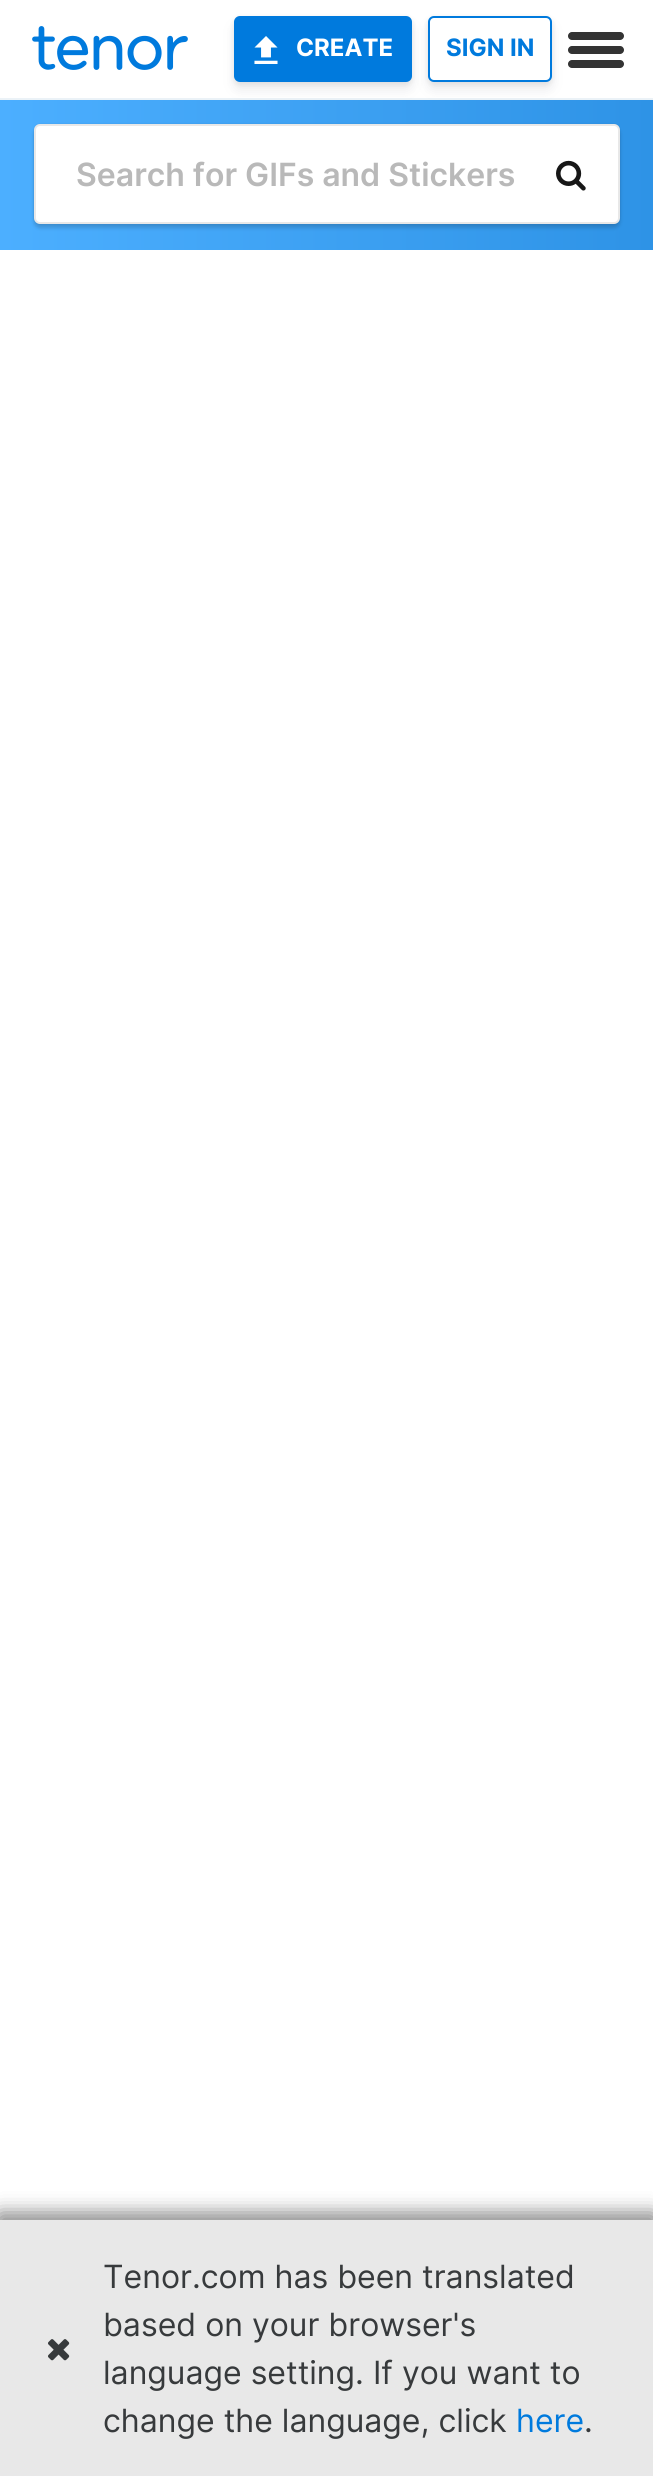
#include <cairo.h>
#include <math.h>
#include <stddef.h>

static cairo_t *c;
static void C(unsigned color){cairo_set_source_rgb(c, (color >> 16) / 255.0, (color >> 8 & 255) / 255.0, (color & 255) / 255.0);}
static void F(const char *family, double size, int italic, int bold){cairo_select_font_face(c, family, italic ? CAIRO_FONT_SLANT_ITALIC : CAIRO_FONT_SLANT_NORMAL,bold ? CAIRO_FONT_WEIGHT_BOLD : CAIRO_FONT_WEIGHT_NORMAL);cairo_set_font_size(c, size);}
static void T(double x, double y, const char *s){cairo_move_to(c, x, y);cairo_show_text(c, s);}
static void R(double x, double y, double w, double h){cairo_rectangle(c, x, y, w, h);cairo_fill(c);}
static void Q(double x, double y, double w, double h, double r){cairo_new_sub_path(c);cairo_arc(c, x + w - r, y + h - r, r, 0, M_PI / 2);cairo_arc(c, x + r, y + h - r, r, M_PI / 2, M_PI);cairo_arc(c, x + r, y + r, r, M_PI, 1.5 * M_PI);cairo_arc(c, x + w - r, y + r, r, 1.5 * M_PI, 2 * M_PI);cairo_close_path(c);}
static void S(double x, double y, double w, double h, double r, double blur, double alpha){cairo_push_group_with_content(c, CAIRO_CONTENT_ALPHA);cairo_set_operator(c, CAIRO_OPERATOR_SOURCE);for (int i = 15; i >= -15 && fmin(w, h) + blur * i / 3 > 0; i -= 2) {double e = blur * i / 6;cairo_set_source_rgba(c, 0, 0, 0, alpha * erfc((i - 1) / 8.5) / 2);Q(x - e, y - e, w + 2 * e, h + 2 * e, fmax(0, fmin(r + e + blur * .6, fmin(w, h) / 2 + e)));cairo_fill(c);}cairo_pattern_t *soft = cairo_pop_group(c);cairo_mask(c, soft);cairo_pattern_destroy(soft);}
static void I(const char *path, double x, double y, double w, double h){cairo_surface_t *image = cairo_image_surface_create_from_png(path);cairo_save(c);cairo_set_source_surface(c, image, x, y);cairo_rectangle(c, x, y, w, h);cairo_fill(c);cairo_restore(c);cairo_surface_destroy(image);}
int main(void) {
cairo_surface_t *surface = cairo_image_surface_create(CAIRO_FORMAT_RGB24, 653, 2476);
c = cairo_create(surface);
cairo_font_options_t *options = cairo_font_options_create();
cairo_font_options_set_hint_metrics(options, CAIRO_HINT_METRICS_OFF);
cairo_font_options_set_hint_style(options, CAIRO_HINT_STYLE_NONE);
cairo_set_font_options(c, options);
cairo_set_miter_limit(c, 4);
cairo_pattern_t *gradient;
C(0xffffff);
cairo_paint(c);
C(0xebf2f7);
R(0,98,653,2);
I("1.png",32,26,156,44);
C(0x53535c);
S(234,24,178,66,6,6,.11);
C(0x000000);
S(234,18,178,66,6,3,.08);
C(0x007add);
Q(235,17,176,64,5);
cairo_fill_preserve(c);
cairo_stroke(c);
I("2.png",254,36,24,28);
F("Inter",24,0,1);
C(0xffffff);
T(296,56,"CREATE");
C(0x53535c);
S(428,24,124,66,6,6,.11);
C(0x000000);
S(428,18,124,66,6,3,.08);
C(0xffffff);
Q(429,17,122,64,5);
cairo_fill_preserve(c);
C(0x007add);
cairo_stroke(c);
T(446,56,"SIGN IN");
C(0x333333);
Q(568,46,56,8,4);
cairo_fill(c);
Q(568,32,56,8,4);
cairo_fill(c);
Q(568,60,56,8,4);
cairo_fill(c);
gradient = cairo_pattern_create_linear(0,175,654,175);
cairo_pattern_add_color_stop_rgba(gradient,0,0.298,0.686,1,1);
cairo_pattern_add_color_stop_rgba(gradient,1,0.18,0.576,0.902,1);
cairo_set_source(c,gradient);
cairo_pattern_destroy(gradient);
R(0,100,653,150);
C(0x000000);
S(34,124,586,100,6,1,.08);
S(34,128,586,100,6,2,.16);
C(0xffffff);
Q(35,125,584,98,5);
cairo_fill_preserve(c);
C(0xe8e8e8);
cairo_stroke(c);
F("Inter SemiBold",32,0,0);
C(0xb9b9b9);
T(76,186,"Search for GIFs and Stickers");
I("3.png",556,160,30,31);
C(0x999999);
S(0,2216,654,256,0,10,1);
S(0,2216,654,256,0,10,1);
C(0xe8e8e8);
R(0,2220,653,256);
I("4.png",48,2339,22,22);
F("Inter",32,0,0);
C(0x373a3c);
T(103,2288,"Tenor.com has been translated");
T(103,2336,"based on your browser's");
T(103,2384,"language setting. If you want to");
T(103,2432,"change the language, click");
C(0x007add);
T(516,2432,"here");
C(0x373a3c);
T(584,2432,".");
cairo_surface_write_to_png(surface, "o.png");
cairo_font_options_destroy(options);
cairo_destroy(c);
cairo_surface_destroy(surface);
return 0;
}
